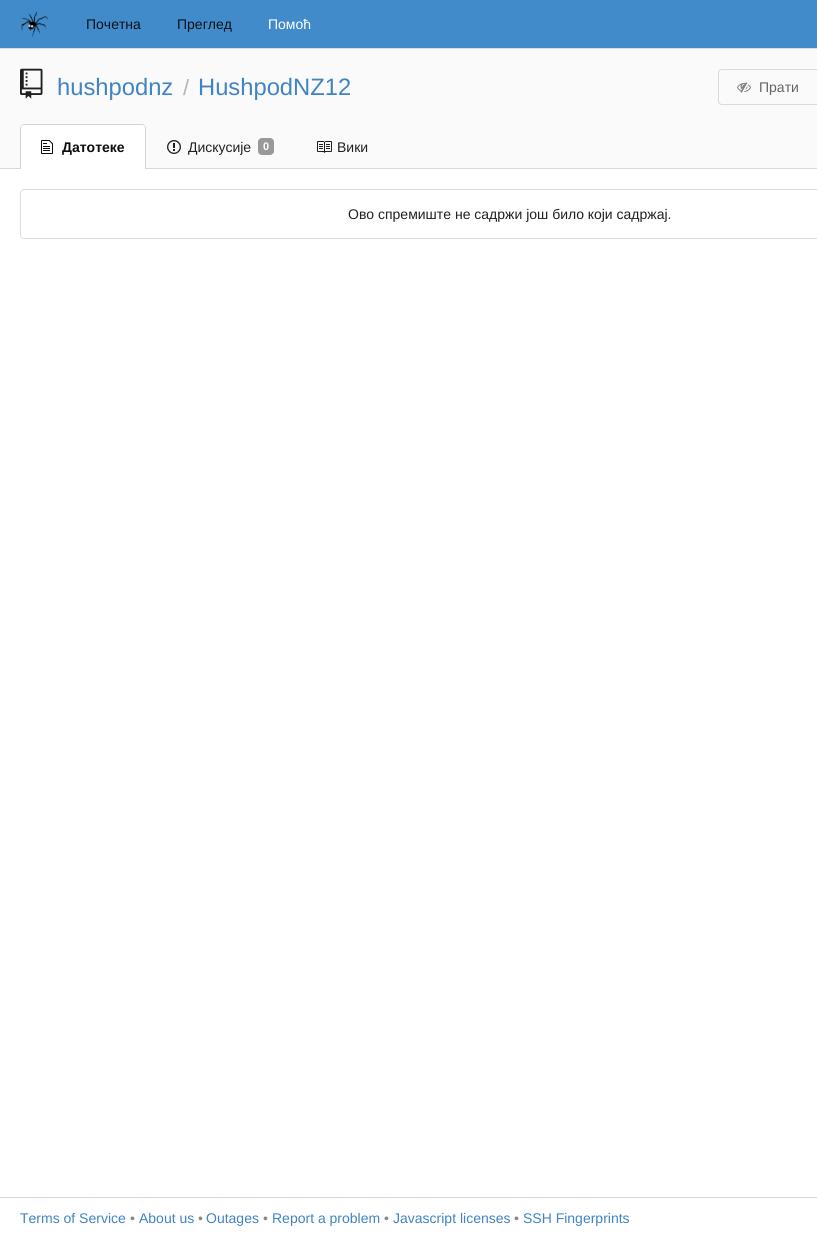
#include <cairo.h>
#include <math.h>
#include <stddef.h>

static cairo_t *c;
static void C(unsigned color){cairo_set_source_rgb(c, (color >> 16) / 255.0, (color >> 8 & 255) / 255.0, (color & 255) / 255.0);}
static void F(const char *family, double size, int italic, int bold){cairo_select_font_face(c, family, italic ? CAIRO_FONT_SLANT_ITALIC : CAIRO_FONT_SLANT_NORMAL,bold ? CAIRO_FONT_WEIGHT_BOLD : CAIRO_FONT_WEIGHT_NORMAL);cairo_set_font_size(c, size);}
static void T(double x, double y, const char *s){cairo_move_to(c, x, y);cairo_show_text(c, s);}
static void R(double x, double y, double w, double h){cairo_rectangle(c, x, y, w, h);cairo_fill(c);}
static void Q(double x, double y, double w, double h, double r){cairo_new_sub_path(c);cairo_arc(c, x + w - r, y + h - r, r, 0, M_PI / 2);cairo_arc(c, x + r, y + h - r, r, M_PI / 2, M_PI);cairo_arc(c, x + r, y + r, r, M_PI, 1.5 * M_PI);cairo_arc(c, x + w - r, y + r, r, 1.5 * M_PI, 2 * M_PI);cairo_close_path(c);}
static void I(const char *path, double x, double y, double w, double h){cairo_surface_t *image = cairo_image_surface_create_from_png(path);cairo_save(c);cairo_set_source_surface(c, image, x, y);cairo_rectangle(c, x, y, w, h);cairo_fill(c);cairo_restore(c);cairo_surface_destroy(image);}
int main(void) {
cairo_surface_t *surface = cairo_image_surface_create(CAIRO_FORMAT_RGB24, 817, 1237);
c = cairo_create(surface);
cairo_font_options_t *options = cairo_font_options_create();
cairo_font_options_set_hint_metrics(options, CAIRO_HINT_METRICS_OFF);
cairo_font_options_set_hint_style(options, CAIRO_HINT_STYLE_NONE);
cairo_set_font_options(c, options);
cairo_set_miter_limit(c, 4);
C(0xffffff);
cairo_paint(c);
C(0x428bca);
R(0,0,817,48);
C(0xdddddd);
R(0,48,817,1);
I("1.png",21,11,28,27);
F("Liberation Sans",14,0,0);
C(0x09121a);
T(86,29,"Почетна");
T(177,29,"Преглед");
C(0xffffff);
T(268,29,"Помоћ");
C(0xfafafa);
R(0,49,817,119);
I("2.png",20,68,23,31);
F("Liberation Sans",23.75,0,0);
C(0x4183c4);
T(57,95,"hushpodnz");
F("Liberation Sans",22,0,0);
C(0xb4b4b4);
T(183,95,"/");
F("Liberation Sans",23.75,0,0);
C(0x4183c4);
T(198,95,"HushpodNZ12");
cairo_new_path(c);
cairo_move_to(c,722,69.5);
cairo_line_to(c,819.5,69.5);
cairo_line_to(c,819.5,104.5);
cairo_line_to(c,722,104.5);
cairo_curve_to(c,720,104.5,718.5,103,718.5,101);
cairo_line_to(c,718.5,73);
cairo_curve_to(c,718.5,71,720,69.5,722,69.5);
cairo_close_path(c);
C(0xdadada);
cairo_set_line_width(c,1);
cairo_stroke(c);
I("3.png",737,82,14,11);
F("Liberation Sans",14,0,0);
C(0x646464);
T(759,92,"Прати");
C(0xdadada);
R(0,168,817,1);
C(0xffffff);
cairo_new_path(c);
cairo_move_to(c,24,124);
cairo_line_to(c,142,124);
cairo_curve_to(c,144,124,146,126,146,128);
cairo_line_to(c,146,169);
cairo_line_to(c,20,169);
cairo_line_to(c,20,128);
cairo_curve_to(c,20,126,22,124,24,124);
cairo_close_path(c);
cairo_fill(c);
C(0xd4d4d5);
cairo_set_fill_rule(c,CAIRO_FILL_RULE_EVEN_ODD);
cairo_new_path(c);
cairo_move_to(c,24,124);
cairo_line_to(c,142,124);
cairo_curve_to(c,144,124,146,126,146,128);
cairo_line_to(c,146,169);
cairo_line_to(c,20,169);
cairo_line_to(c,20,128);
cairo_curve_to(c,20,126,22,124,24,124);
cairo_close_path(c);
cairo_move_to(c,24,125);
cairo_line_to(c,142,125);
cairo_curve_to(c,144,125,145,126,145,128);
cairo_line_to(c,145,169);
cairo_line_to(c,21,169);
cairo_line_to(c,21,128);
cairo_curve_to(c,21,126,22,125,24,125);
cairo_close_path(c);
cairo_fill(c);
I("4.png",41,140,12,14);
F("Liberation Sans",14,0,1);
C(0x0d0d0d);
T(62,152,"Датотеке");
I("5.png",167,140,14,14);
F("Liberation Sans",14,0,0);
C(0x212121);
T(188,152,"Дискусије");
C(0x999999);
Q(258,138,16,17,4);
cairo_fill(c);
F("Liberation Sans",11,0,1);
C(0xffffff);
T(263,150,"0");
I("6.png",317,141,15,12);
F("Liberation Sans",14,0,0);
C(0x212121);
T(337,152,"Вики");
Q(20.5,189.5,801,49,3.5);
C(0xdedede);
cairo_stroke(c);
C(0x212121);
T(348,219,"Ово спремиште не садржи још било који садржај.");
C(0xd6d6d6);
R(0,1197,817,1);
C(0x4183c4);
T(20,1223,"Terms of Service");
C(0x888888);
T(130,1223,"•");
C(0x4183c4);
T(139,1223,"About us");
C(0x888888);
T(198,1223,"•");
C(0x4183c4);
T(206,1223,"Outages");
C(0x888888);
T(263,1223,"•");
C(0x4183c4);
T(272,1223,"Report a problem");
C(0x888888);
T(384,1223,"•");
C(0x4183c4);
T(393,1223,"Javascript licenses");
C(0x888888);
T(514,1223,"•");
C(0x4183c4);
T(523,1223,"SSH Fingerprints");
cairo_surface_write_to_png(surface, "o.png");
cairo_font_options_destroy(options);
cairo_destroy(c);
cairo_surface_destroy(surface);
return 0;
}
